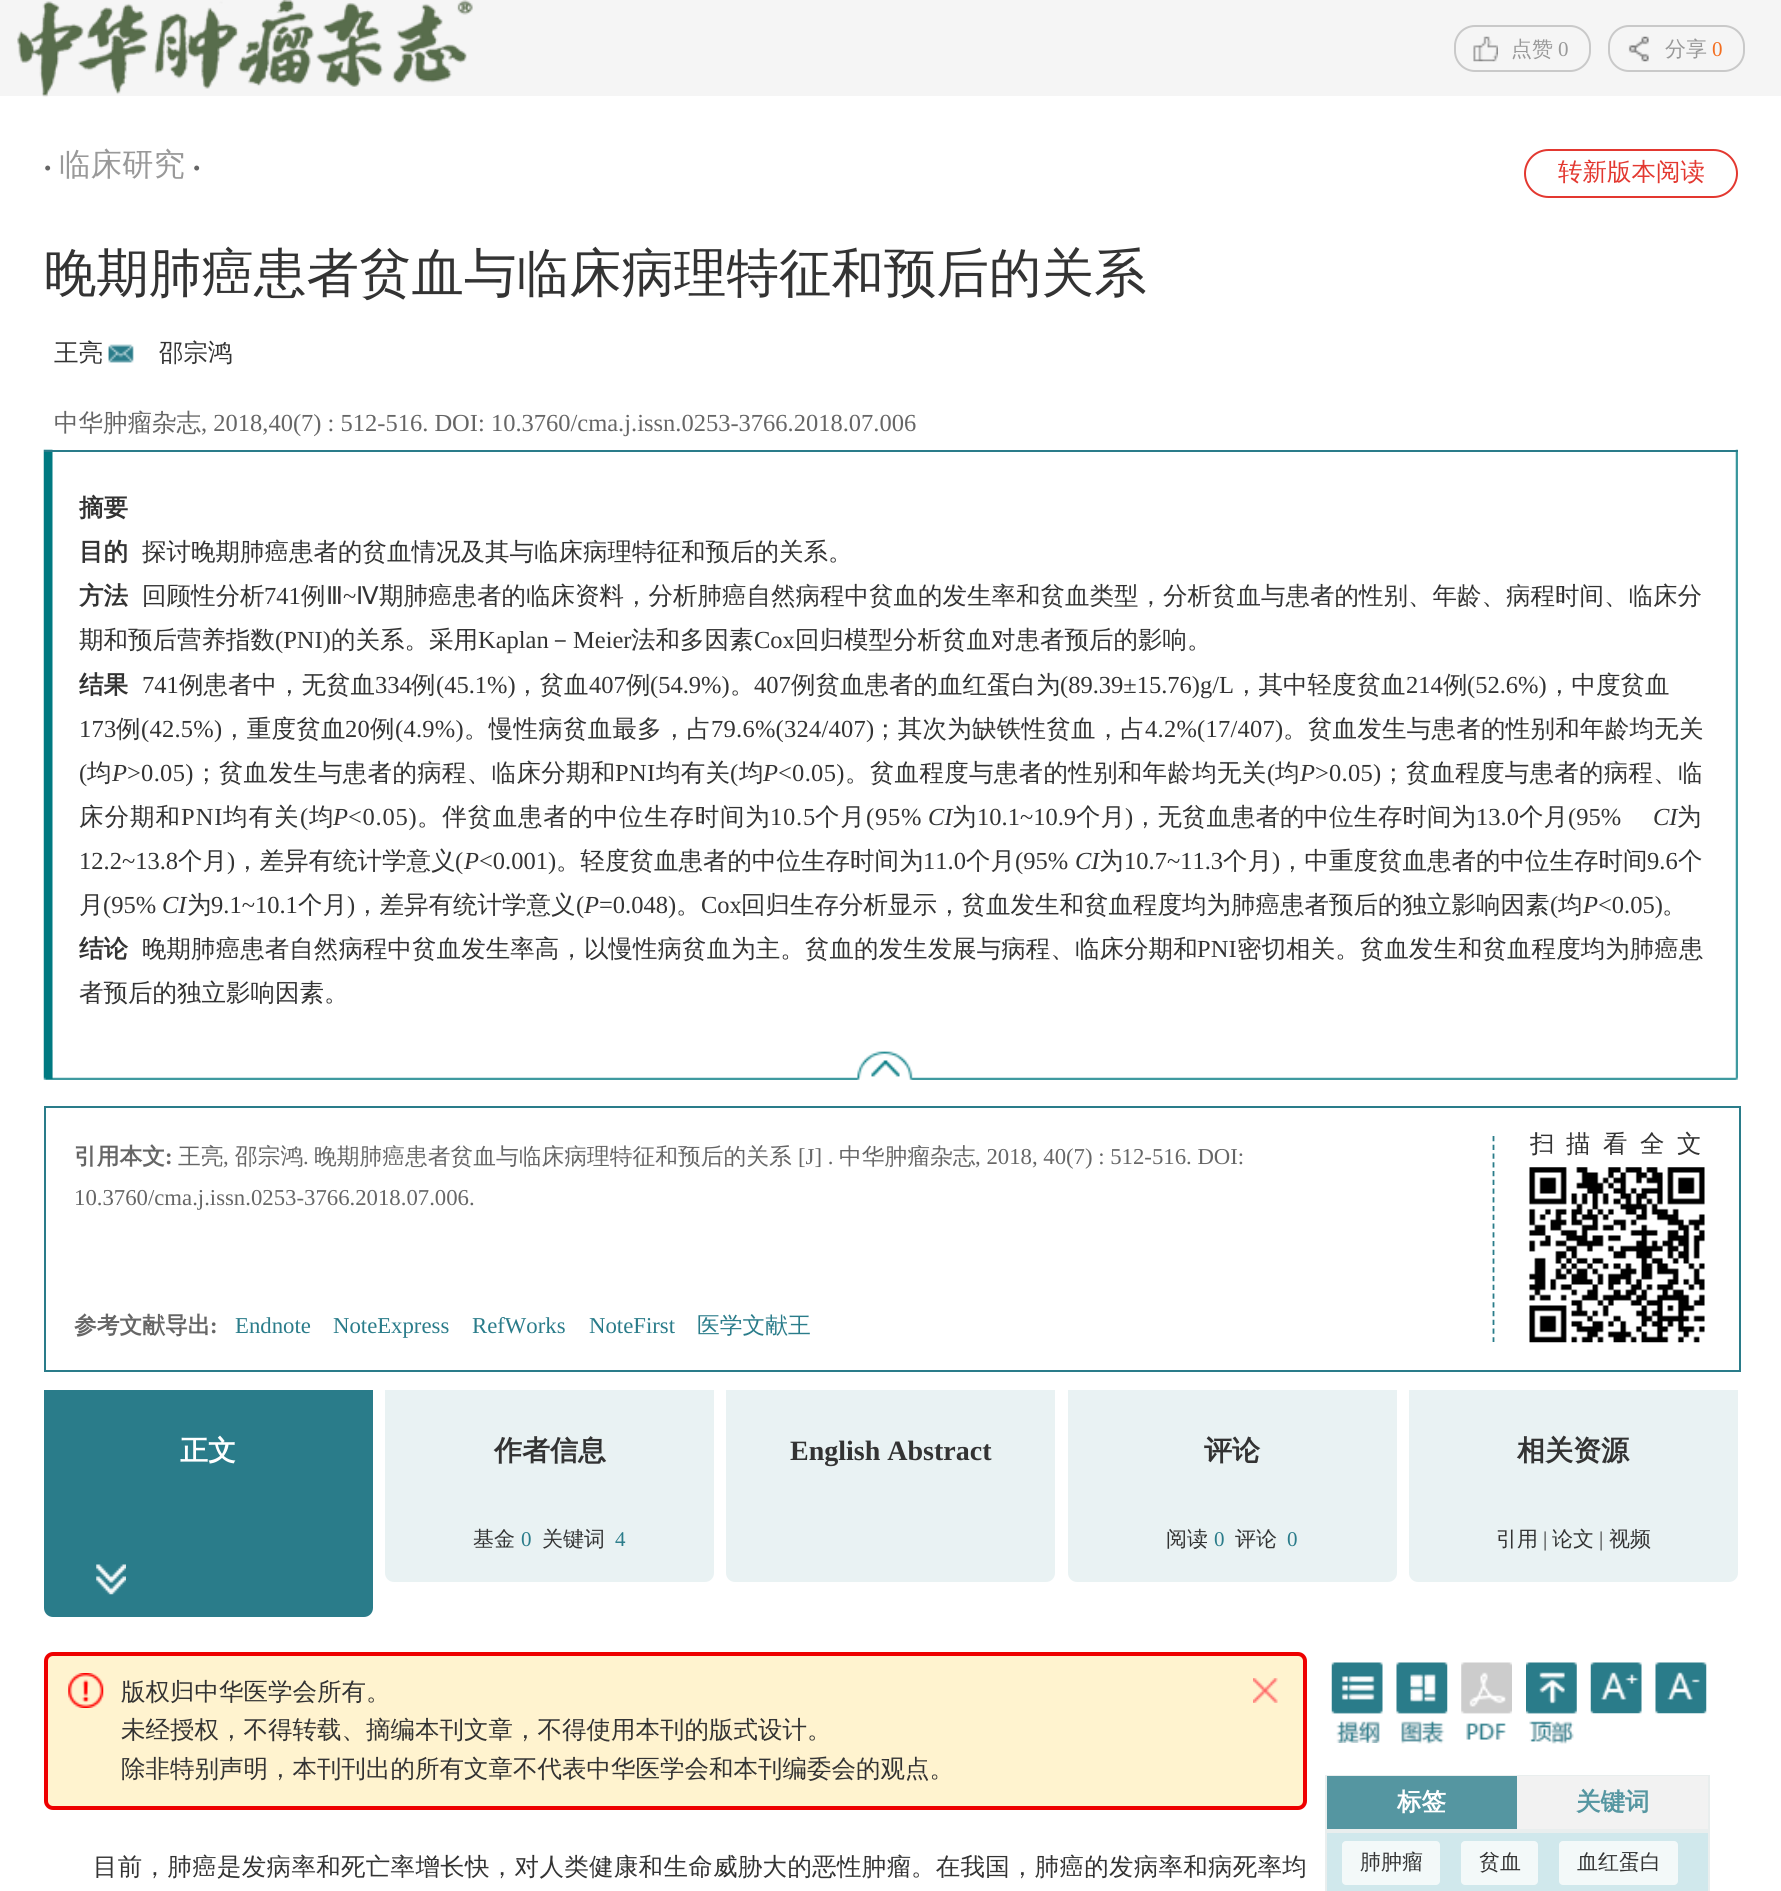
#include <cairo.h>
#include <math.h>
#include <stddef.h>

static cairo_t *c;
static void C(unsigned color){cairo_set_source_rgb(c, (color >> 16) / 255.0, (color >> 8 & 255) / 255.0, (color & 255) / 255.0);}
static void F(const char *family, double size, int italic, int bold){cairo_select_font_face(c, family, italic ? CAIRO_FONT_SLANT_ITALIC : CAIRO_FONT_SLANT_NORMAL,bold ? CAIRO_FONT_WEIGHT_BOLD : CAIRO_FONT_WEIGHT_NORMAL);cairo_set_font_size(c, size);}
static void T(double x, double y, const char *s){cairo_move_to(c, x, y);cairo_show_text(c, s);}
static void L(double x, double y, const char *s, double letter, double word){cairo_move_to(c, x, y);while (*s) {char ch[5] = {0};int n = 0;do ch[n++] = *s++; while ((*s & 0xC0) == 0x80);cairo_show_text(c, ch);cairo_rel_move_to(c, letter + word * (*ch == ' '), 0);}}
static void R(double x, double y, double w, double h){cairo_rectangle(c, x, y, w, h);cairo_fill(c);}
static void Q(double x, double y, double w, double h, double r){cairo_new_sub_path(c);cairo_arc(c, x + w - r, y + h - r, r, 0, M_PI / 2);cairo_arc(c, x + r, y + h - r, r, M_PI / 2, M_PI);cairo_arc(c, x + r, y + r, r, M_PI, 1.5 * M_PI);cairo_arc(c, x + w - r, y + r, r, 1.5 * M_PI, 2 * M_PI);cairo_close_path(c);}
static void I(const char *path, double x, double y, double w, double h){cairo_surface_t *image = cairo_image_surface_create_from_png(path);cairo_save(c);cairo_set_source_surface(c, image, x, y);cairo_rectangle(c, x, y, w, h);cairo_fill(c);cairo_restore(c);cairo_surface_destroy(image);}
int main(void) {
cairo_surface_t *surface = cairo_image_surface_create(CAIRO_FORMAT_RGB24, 1781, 1891);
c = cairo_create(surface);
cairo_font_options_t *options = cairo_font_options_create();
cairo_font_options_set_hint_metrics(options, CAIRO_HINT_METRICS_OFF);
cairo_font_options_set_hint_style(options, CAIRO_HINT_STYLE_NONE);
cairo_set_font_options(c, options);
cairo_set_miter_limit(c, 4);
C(0xffffff);
cairo_paint(c);
C(0xf5f5f5);
R(0,0,1781,96);
I("1.png",17,0,456,97);
I("2.png",1473,36,25,26);
Q(1455,26,135,45,20);
C(0xc9c9c9);
cairo_stroke(c);
F("WenQuanYi Zen Hei Medium",21,0,0);
C(0x999999);
T(1511,56,"点赞");
F("Liberation Serif",21,0,0);
T(1558,56,"0");
I("3.png",1628,36,21,26);
Q(1609,26,135,45,20);
C(0xc9c9c9);
cairo_stroke(c);
F("WenQuanYi Zen Hei Medium",21,0,0);
C(0x999999);
T(1665,56,"分享");
F("Liberation Serif",21,0,0);
C(0xf36f21);
T(1712,56,"0");
C(0x666666);
T(44,175,"•");
F("WenQuanYi Zen Hei Medium",31.5,0,0);
C(0x999999);
T(59,175,"临床研究");
F("Liberation Serif",21,0,0);
C(0x666666);
T(193,175,"•");
Q(1525,150,212,47,23.5);
C(0xe33830);
cairo_stroke(c);
F("WenQuanYi Zen Hei Medium",24.5,0,0);
T(1558,180,"转新版本阅读");
F("WenQuanYi Zen Hei Medium",52.5,0,0);
C(0x333333);
T(44,291,"晚期肺癌患者贫血与临床病理特征和预后的关系");
F("WenQuanYi Zen Hei Medium",24.5,0,0);
T(54,361,"王亮");
I("4.png",108,344,26,19);
T(159,361,"邵宗鸿");
C(0x666666);
T(54,431,"中华肿瘤杂志");
F("Liberation Serif",24.5,0,0);
T(201,431,", 2018,40(7) : 512-516. DOI: 10.3760/cma.j.issn.0253-3766.2018.07.006");
I("5.png",43,449,1695,601);
C(0x2a7c8a);
R(44,450,1694,2);
F("WenQuanYi Zen Hei",24.5,0,1);
C(0x333333);
T(79,516,"摘要");
T(79,560,"目的");
F("WenQuanYi Zen Hei Medium",24.5,0,0);
T(142,560,"探讨晚期肺癌患者的贫血情况及其与临床病理特征和预后的关系。");
F("WenQuanYi Zen Hei",24.5,0,1);
T(79,604,"方法");
F("WenQuanYi Zen Hei Medium",24.5,0,0);
T(142,604,"回顾性分析");
F("Liberation Serif",24.5,0,0);
T(264,604,"741");
F("WenQuanYi Zen Hei Medium",24.5,0,0);
T(301,604,"例");
F("DejaVu Sans",24.5,0,0);
T(326,604,"Ⅲ");
F("Liberation Serif",24.5,0,0);
T(343,604,"~");
F("DejaVu Sans",24.5,0,0);
T(356,604,"Ⅳ");
F("WenQuanYi Zen Hei Medium",24.5,0,0);
T(379,604,"期肺癌患者的临床资料，分析肺癌自然病程中贫血的发生率和贫血类型，分析贫血与患者的性别、年龄、病程时间、临床分");
T(79,648,"期和预后营养指数");
F("Liberation Serif",24.5,0,0);
T(275,648,"(PNI)");
F("WenQuanYi Zen Hei Medium",24.5,0,0);
T(331,648,"的关系。采用");
F("Liberation Serif",24.5,0,0);
T(478,648,"Kaplan");
F("WenQuanYi Zen Hei Medium",24.5,0,0);
T(548,648,"－");
F("Liberation Serif",24.5,0,0);
T(573,648,"Meier");
F("WenQuanYi Zen Hei Medium",24.5,0,0);
T(631,648,"法和多因素");
F("Liberation Serif",24.5,0,0);
T(754,648,"Cox");
F("WenQuanYi Zen Hei Medium",24.5,0,0);
T(795,648,"回归模型分析贫血对患者预后的影响。");
F("WenQuanYi Zen Hei",24.5,0,1);
T(79,693,"结果");
F("Liberation Serif",24.5,0,0);
T(142,693,"741");
F("WenQuanYi Zen Hei Medium",24.5,0,0);
T(179,693,"例患者中，无贫血");
F("Liberation Serif",24.5,0,0);
T(375,693,"334");
F("WenQuanYi Zen Hei Medium",24.5,0,0);
T(411,693,"例");
F("Liberation Serif",24.5,0,0);
T(436,693,"(45.1%)");
F("WenQuanYi Zen Hei Medium",24.5,0,0);
T(515,693,"，贫血");
F("Liberation Serif",24.5,0,0);
T(589,693,"407");
F("WenQuanYi Zen Hei Medium",24.5,0,0);
T(626,693,"例");
F("Liberation Serif",24.5,0,0);
T(650,693,"(54.9%)");
F("WenQuanYi Zen Hei Medium",24.5,0,0);
T(730,693,"。");
F("Liberation Serif",24.5,0,0);
T(754,693,"407");
F("WenQuanYi Zen Hei Medium",24.5,0,0);
T(791,693,"例贫血患者的血红蛋白为");
F("Liberation Serif",24.5,0,0);
T(1060,693,"(89.39±15.76)g/L");
F("WenQuanYi Zen Hei Medium",24.5,0,0);
T(1234,693,"，其中轻度贫血");
F("Liberation Serif",24.5,0,0);
T(1406,693,"214");
F("WenQuanYi Zen Hei Medium",24.5,0,0);
T(1443,693,"例");
F("Liberation Serif",24.5,0,0);
T(1467,693,"(52.6%)");
F("WenQuanYi Zen Hei Medium",24.5,0,0);
T(1547,693,"，中度贫血");
F("Liberation Serif",24.5,0,0);
L(79,737,"173",.25,0);
F("WenQuanYi Zen Hei Medium",24.5,0,0);
L(116,737,"例",.25,0);
F("Liberation Serif",24.5,0,0);
L(141,737,"(42.5%)",.25,0);
F("WenQuanYi Zen Hei Medium",24.5,0,0);
L(222,737,"，重度贫血",.25,0);
F("Liberation Serif",24.5,0,0);
L(345,737,"20",.25,0);
F("WenQuanYi Zen Hei Medium",24.5,0,0);
L(370,737,"例",.25,0);
F("Liberation Serif",24.5,0,0);
L(395,737,"(4.9%)",.25,0);
F("WenQuanYi Zen Hei Medium",24.5,0,0);
L(464,737,"。慢性病贫血最多，占",.25,0);
F("Liberation Serif",24.5,0,0);
L(711,737,"79.6%(324/407)",.25,0);
F("WenQuanYi Zen Hei Medium",24.5,0,0);
L(873,737,"；其次为缺铁性贫血，占",.25,0);
F("Liberation Serif",24.5,0,0);
L(1145,737,"4.2%(17/407)",.25,0);
F("WenQuanYi Zen Hei Medium",24.5,0,0);
L(1283,737,"。贫血发生与患者的性别和年龄均无关",.25,0);
F("Liberation Serif",24.5,0,0);
T(79,781,"(");
F("WenQuanYi Zen Hei Medium",24.5,0,0);
T(87,781,"均");
F("Liberation Serif",24.5,1,0);
T(112,781,"P");
F("Liberation Serif",24.5,0,0);
L(127,781,">0.05)",.3,0);
F("WenQuanYi Zen Hei Medium",24.5,0,0);
L(194,781,"；贫血发生与患者的病程、临床分期和",.3,0);
F("Liberation Serif",24.5,0,0);
L(615,781,"PNI",.3,0);
F("WenQuanYi Zen Hei Medium",24.5,0,0);
L(656,781,"均有关",.3,0);
F("Liberation Serif",24.5,0,0);
L(730,781,"(",.3,0);
F("WenQuanYi Zen Hei Medium",24.5,0,0);
L(739,781,"均",.3,0);
F("Liberation Serif",24.5,1,0);
T(763,781,"P");
F("Liberation Serif",24.5,0,0);
L(778,781,"<0.05)",.3,0);
F("WenQuanYi Zen Hei Medium",24.5,0,0);
L(845,781,"。贫血程度与患者的性别和年龄均无关",.3,0);
F("Liberation Serif",24.5,0,0);
L(1267,781,"(",.3,0);
F("WenQuanYi Zen Hei Medium",24.5,0,0);
L(1275,781,"均",.3,0);
F("Liberation Serif",24.5,1,0);
T(1300,781,"P");
F("Liberation Serif",24.5,0,0);
L(1315,781,">0.05)",.25,0);
F("WenQuanYi Zen Hei Medium",24.5,0,0);
L(1381,781,"；贫血程度与患者的病程、临",.25,0);
L(79,825,"床分期和",1,0);
F("Liberation Serif",24.5,0,0);
L(181,825,"PNI",1,0);
F("WenQuanYi Zen Hei Medium",24.5,0,0);
L(223,825,"均有关",1,0);
F("Liberation Serif",24.5,0,0);
L(300,825,"(",1,0);
F("WenQuanYi Zen Hei Medium",24.5,0,0);
L(309,825,"均",1,0);
F("Liberation Serif",24.5,1,0);
T(333,825,"P");
F("Liberation Serif",24.5,0,0);
L(348,825,"<0.05)",.75,0);
F("WenQuanYi Zen Hei Medium",24.5,0,0);
L(417,825,"。伴贫血患者的中位生存时间为",.75,0);
F("Liberation Serif",24.5,0,0);
L(770,825,"10.5",.75,0);
F("WenQuanYi Zen Hei Medium",24.5,0,0);
L(815,825,"个月",.75,0);
F("Liberation Serif",24.5,0,0);
L(866,825,"(95%",.75,0);
F("Liberation Serif",24.5,1,0);
T(928,825,"CI");
F("WenQuanYi Zen Hei Medium",24.5,0,0);
T(952,825,"为");
F("Liberation Serif",24.5,0,0);
T(977,825,"10.1~10.9");
F("WenQuanYi Zen Hei Medium",24.5,0,0);
T(1076,825,"个月");
F("Liberation Serif",24.5,0,0);
T(1125,825,")");
F("WenQuanYi Zen Hei Medium",24.5,0,0);
T(1133,825,"，无贫血患者的中位生存时间为");
F("Liberation Serif",24.5,0,0);
T(1476,825,"13.0");
F("WenQuanYi Zen Hei Medium",24.5,0,0);
T(1519,825,"个月");
F("Liberation Serif",24.5,0,0);
T(1568,825,"(95%");
F("Liberation Serif",24.5,1,0);
T(1653,825,"CI");
F("WenQuanYi Zen Hei Medium",24.5,0,0);
T(1677,825,"为");
F("Liberation Serif",24.5,0,0);
T(79,869,"12.2~13.8");
F("WenQuanYi Zen Hei Medium",24.5,0,0);
T(178,869,"个月");
F("Liberation Serif",24.5,0,0);
T(227,869,")");
F("WenQuanYi Zen Hei Medium",24.5,0,0);
T(235,869,"，差异有统计学意义");
F("Liberation Serif",24.5,0,0);
T(455,869,"(");
F("Liberation Serif",24.5,1,0);
T(464,869,"P");
F("Liberation Serif",24.5,0,0);
T(479,869,"<0.001)");
F("WenQuanYi Zen Hei Medium",24.5,0,0);
T(556,869,"。轻度贫血患者的中位生存时间为");
F("Liberation Serif",24.5,0,0);
T(923,869,"11.0");
F("WenQuanYi Zen Hei Medium",24.5,0,0);
T(966,869,"个月");
F("Liberation Serif",24.5,0,0);
T(1015,869,"(95%");
F("Liberation Serif",24.5,1,0);
T(1075,869,"CI");
F("WenQuanYi Zen Hei Medium",24.5,0,0);
T(1099,869,"为");
F("Liberation Serif",24.5,0,0);
T(1124,869,"10.7~11.3");
F("WenQuanYi Zen Hei Medium",24.5,0,0);
T(1223,869,"个月");
F("Liberation Serif",24.5,0,0);
T(1272,869,")");
F("WenQuanYi Zen Hei Medium",24.5,0,0);
T(1280,869,"，中重度贫血患者的中位生存时间");
F("Liberation Serif",24.5,0,0);
T(1647,869,"9.6");
F("WenQuanYi Zen Hei Medium",24.5,0,0);
T(1678,869,"个");
T(79,913,"月");
F("Liberation Serif",24.5,0,0);
T(103,913,"(95%");
F("Liberation Serif",24.5,1,0);
T(162,913,"CI");
F("WenQuanYi Zen Hei Medium",24.5,0,0);
T(187,913,"为");
F("Liberation Serif",24.5,0,0);
T(211,913,"9.1~10.1");
F("WenQuanYi Zen Hei Medium",24.5,0,0);
T(298,913,"个月");
F("Liberation Serif",24.5,0,0);
T(347,913,")");
F("WenQuanYi Zen Hei Medium",24.5,0,0);
T(355,913,"，差异有统计学意义");
F("Liberation Serif",24.5,0,0);
T(576,913,"(");
F("Liberation Serif",24.5,1,0);
T(584,913,"P");
F("Liberation Serif",24.5,0,0);
T(599,913,"=0.048)");
F("WenQuanYi Zen Hei Medium",24.5,0,0);
T(676,913,"。");
F("Liberation Serif",24.5,0,0);
T(701,913,"Cox");
F("WenQuanYi Zen Hei Medium",24.5,0,0);
T(741,913,"回归生存分析显示，贫血发生和贫血程度均为肺癌患者预后的独立影响因素");
F("Liberation Serif",24.5,0,0);
T(1550,913,"(");
F("WenQuanYi Zen Hei Medium",24.5,0,0);
T(1558,913,"均");
F("Liberation Serif",24.5,1,0);
T(1583,913,"P");
F("Liberation Serif",24.5,0,0);
T(1598,913,"<0.05)");
F("WenQuanYi Zen Hei Medium",24.5,0,0);
T(1662,913,"。");
F("WenQuanYi Zen Hei",24.5,0,1);
T(79,957,"结论");
F("WenQuanYi Zen Hei Medium",24.5,0,0);
L(142,957,"晚期肺癌患者自然病程中贫血发生率高，以慢性病贫血为主。贫血的发生发展与病程、临床分期和",.05,0);
F("Liberation Serif",24.5,0,0);
L(1197,957,"PNI",.05,0);
F("WenQuanYi Zen Hei Medium",24.5,0,0);
L(1237,957,"密切相关。贫血发生和贫血程度均为肺癌患",.05,0);
T(79,1001,"者预后的独立影响因素。");
I("6.png",43,1050,1695,30);
cairo_rectangle(c,45,1107,1695,264);
C(0x2a7c8a);
cairo_stroke(c);
F("WenQuanYi Zen Hei",22.75,0,1);
C(0x666666);
T(74,1164,"引用本文");
F("Liberation Serif",22.75,0,1);
T(165,1164,":");
F("WenQuanYi Zen Hei Medium",22.75,0,0);
T(178,1164,"王亮");
F("Liberation Serif",22.75,0,0);
T(223,1164,",");
F("WenQuanYi Zen Hei Medium",22.75,0,0);
T(235,1164,"邵宗鸿");
F("Liberation Serif",22.75,0,0);
T(303,1164,".");
F("WenQuanYi Zen Hei Medium",22.75,0,0);
T(314,1164,"晚期肺癌患者贫血与临床病理特征和预后的关系");
F("Liberation Serif",22.75,0,0);
T(798,1164,"[J] .");
F("WenQuanYi Zen Hei Medium",22.75,0,0);
T(839,1164,"中华肿瘤杂志");
F("Liberation Serif",22.75,0,0);
T(975,1164,", 2018, 40(7) : 512-516. DOI:");
T(74,1205,"10.3760/cma.j.issn.0253-3766.2018.07.006.");
F("WenQuanYi Zen Hei",22.75,0,1);
T(74,1333,"参考文献导出");
F("Liberation Serif",22.75,0,1);
T(210,1333,":");
F("Liberation Serif",22.75,0,0);
C(0x2a7c8a);
T(235,1333,"Endnote");
T(333,1333,"NoteExpress");
T(472,1333,"RefWorks");
T(589,1333,"NoteFirst");
F("WenQuanYi Zen Hei Medium",22.75,0,0);
T(697,1333,"医学文献王");
cairo_new_path(c);
cairo_move_to(c,1493.5,1136);
cairo_line_to(c,1493.5,1342);
cairo_set_line_width(c,1.8);
cairo_set_dash(c,(double[]){5.25,3.5},2,0);
cairo_stroke(c);
F("WenQuanYi Zen Hei Medium",24.5,0,0);
C(0x333333);
T(1530,1152,"扫");
T(1566,1152,"描");
T(1603,1152,"看");
T(1640,1152,"全");
T(1677,1152,"文");
I("7.png",1529,1167,176,176);
C(0x2a7c8a);
cairo_new_path(c);
cairo_move_to(c,44,1390);
cairo_line_to(c,373,1390);
cairo_line_to(c,373,1608);
cairo_curve_to(c,373,1613,369,1617,364,1617);
cairo_line_to(c,53,1617);
cairo_curve_to(c,48,1617,44,1613,44,1608);
cairo_close_path(c);
cairo_fill(c);
F("WenQuanYi Zen Hei",28,0,1);
C(0xffffff);
T(180,1460,"正文");
I("8.png",96,1564,30,31);
C(0xe9f2f3);
cairo_new_path(c);
cairo_move_to(c,385,1390);
cairo_line_to(c,714,1390);
cairo_line_to(c,714,1573);
cairo_curve_to(c,714,1578,710,1582,705,1582);
cairo_line_to(c,394,1582);
cairo_curve_to(c,389,1582,385,1578,385,1573);
cairo_close_path(c);
cairo_fill(c);
C(0x333333);
T(494,1460,"作者信息");
F("WenQuanYi Zen Hei Medium",21,0,0);
T(473,1546,"基金");
F("Liberation Serif",21,0,0);
C(0x2a7c8a);
T(521,1546,"0");
F("WenQuanYi Zen Hei Medium",21,0,0);
C(0x333333);
T(542,1546,"关键词");
F("Liberation Serif",21,0,0);
C(0x2a7c8a);
T(615,1546,"4");
C(0xe9f2f3);
cairo_new_path(c);
cairo_move_to(c,726,1390);
cairo_line_to(c,1055,1390);
cairo_line_to(c,1055,1573);
cairo_curve_to(c,1055,1578,1051,1582,1046,1582);
cairo_line_to(c,735,1582);
cairo_curve_to(c,730,1582,726,1578,726,1573);
cairo_close_path(c);
cairo_fill(c);
F("Liberation Serif",28,0,1);
C(0x333333);
T(790,1460,"English Abstract");
C(0xe9f2f3);
cairo_new_path(c);
cairo_move_to(c,1068,1390);
cairo_line_to(c,1397,1390);
cairo_line_to(c,1397,1573);
cairo_curve_to(c,1397,1578,1393,1582,1388,1582);
cairo_line_to(c,1077,1582);
cairo_curve_to(c,1072,1582,1068,1578,1068,1573);
cairo_close_path(c);
cairo_fill(c);
F("WenQuanYi Zen Hei",28,0,1);
C(0x333333);
T(1204,1460,"评论");
F("WenQuanYi Zen Hei Medium",21,0,0);
T(1166,1546,"阅读");
F("Liberation Serif",21,0,0);
C(0x2a7c8a);
T(1214,1546,"0");
F("WenQuanYi Zen Hei Medium",21,0,0);
C(0x333333);
T(1235,1546,"评论");
F("Liberation Serif",21,0,0);
C(0x2a7c8a);
T(1287,1546,"0");
C(0xe9f2f3);
cairo_new_path(c);
cairo_move_to(c,1409,1390);
cairo_line_to(c,1738,1390);
cairo_line_to(c,1738,1573);
cairo_curve_to(c,1738,1578,1734,1582,1729,1582);
cairo_line_to(c,1418,1582);
cairo_curve_to(c,1413,1582,1409,1578,1409,1573);
cairo_close_path(c);
cairo_fill(c);
F("WenQuanYi Zen Hei",28,0,1);
C(0x333333);
T(1517,1460,"相关资源");
F("WenQuanYi Zen Hei Medium",21,0,0);
T(1496,1546,"引用");
F("Liberation Serif",21,0,0);
T(1543,1546,"|");
F("WenQuanYi Zen Hei Medium",21,0,0);
T(1552,1546,"论文");
F("Liberation Serif",21,0,0);
T(1599,1546,"|");
F("WenQuanYi Zen Hei Medium",21,0,0);
T(1609,1546,"视频");
C(0xfff3cf);
Q(46,1654,1259,154,7);
cairo_fill_preserve(c);
C(0xee0000);
cairo_set_line_width(c,4);
cairo_set_dash(c,NULL,0,0);
cairo_stroke(c);
I("9.png",68,1673,36,35);
F("WenQuanYi Zen Hei Medium",24.5,0,0);
C(0x333333);
T(121,1700,"版权归中华医学会所有。");
T(121,1738,"未经授权，不得转载、摘编本刊文章，不得使用本刊的版式设计。");
T(121,1777,"除非特别声明，本刊刊出的所有文章不代表中华医学会和本刊编委会的观点。");
I("10.png",1253,1678,25,25);
L(93,1875,"目前，肺癌是发病率和死亡率增长快，对人类健康和生命威胁大的恶性肿瘤",.3,0);
L(911,1875,"。在我国，肺癌的发病率和病死率均",.25,0);
I("11.png",1331,1662,52,81);
I("12.png",1396,1662,52,82);
I("13.png",1461,1662,51,78);
I("14.png",1526,1662,51,82);
I("15.png",1590,1662,52,52);
I("16.png",1655,1662,52,52);
cairo_rectangle(c,1326,1776,383,54);
C(0xe9eeee);
cairo_set_line_width(c,2);
cairo_stroke(c);
C(0x5596a1);
R(1327,1776,190,53);
F("WenQuanYi Zen Hei",24.5,0,1);
C(0xffffff);
T(1397,1810,"标签");
C(0xf2f2f2);
R(1517,1776,191,53);
C(0x5596a1);
T(1576,1810,"关键词");
C(0xd0e8ec);
cairo_rectangle(c,1326,1832,383,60);
cairo_fill_preserve(c);
C(0xe9eeee);
cairo_stroke(c);
C(0xf3f9f9);
Q(1342,1841,98,44,4);
cairo_fill(c);
F("WenQuanYi Zen Hei Medium",21,0,0);
C(0x333333);
T(1360,1869,"肺肿瘤");
C(0xf3f9f9);
Q(1461,1841,77,44,4);
cairo_fill(c);
C(0x333333);
T(1479,1869,"贫血");
C(0xf3f9f9);
Q(1559,1841,119,44,4);
cairo_fill(c);
C(0x333333);
T(1577,1869,"血红蛋白");
cairo_surface_write_to_png(surface, "o.png");
cairo_font_options_destroy(options);
cairo_destroy(c);
cairo_surface_destroy(surface);
return 0;
}
